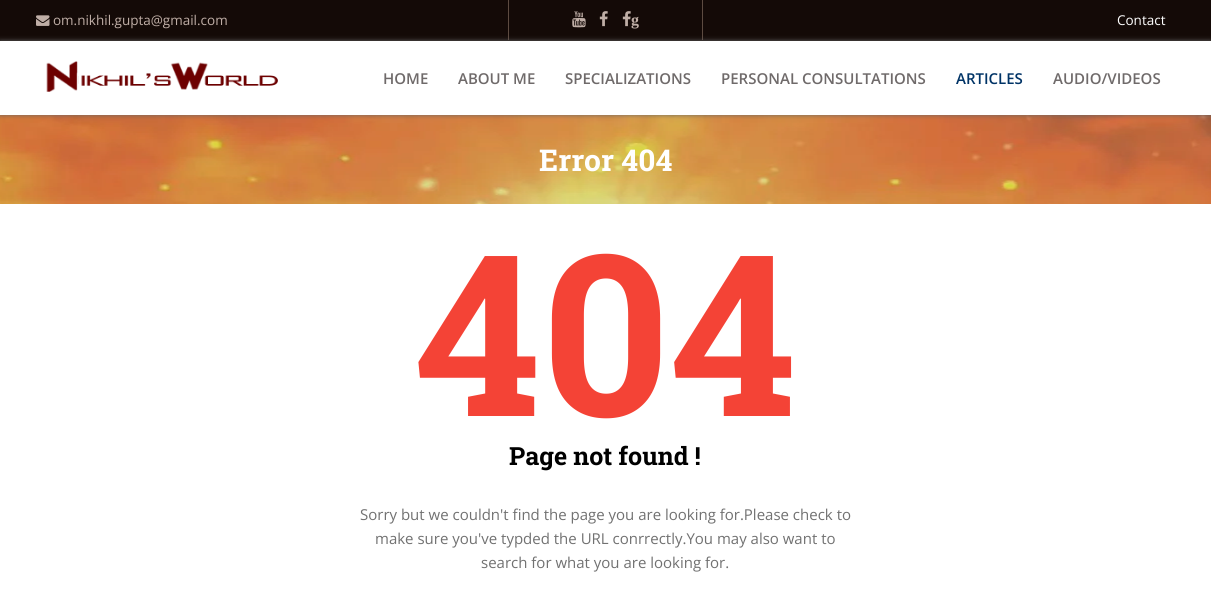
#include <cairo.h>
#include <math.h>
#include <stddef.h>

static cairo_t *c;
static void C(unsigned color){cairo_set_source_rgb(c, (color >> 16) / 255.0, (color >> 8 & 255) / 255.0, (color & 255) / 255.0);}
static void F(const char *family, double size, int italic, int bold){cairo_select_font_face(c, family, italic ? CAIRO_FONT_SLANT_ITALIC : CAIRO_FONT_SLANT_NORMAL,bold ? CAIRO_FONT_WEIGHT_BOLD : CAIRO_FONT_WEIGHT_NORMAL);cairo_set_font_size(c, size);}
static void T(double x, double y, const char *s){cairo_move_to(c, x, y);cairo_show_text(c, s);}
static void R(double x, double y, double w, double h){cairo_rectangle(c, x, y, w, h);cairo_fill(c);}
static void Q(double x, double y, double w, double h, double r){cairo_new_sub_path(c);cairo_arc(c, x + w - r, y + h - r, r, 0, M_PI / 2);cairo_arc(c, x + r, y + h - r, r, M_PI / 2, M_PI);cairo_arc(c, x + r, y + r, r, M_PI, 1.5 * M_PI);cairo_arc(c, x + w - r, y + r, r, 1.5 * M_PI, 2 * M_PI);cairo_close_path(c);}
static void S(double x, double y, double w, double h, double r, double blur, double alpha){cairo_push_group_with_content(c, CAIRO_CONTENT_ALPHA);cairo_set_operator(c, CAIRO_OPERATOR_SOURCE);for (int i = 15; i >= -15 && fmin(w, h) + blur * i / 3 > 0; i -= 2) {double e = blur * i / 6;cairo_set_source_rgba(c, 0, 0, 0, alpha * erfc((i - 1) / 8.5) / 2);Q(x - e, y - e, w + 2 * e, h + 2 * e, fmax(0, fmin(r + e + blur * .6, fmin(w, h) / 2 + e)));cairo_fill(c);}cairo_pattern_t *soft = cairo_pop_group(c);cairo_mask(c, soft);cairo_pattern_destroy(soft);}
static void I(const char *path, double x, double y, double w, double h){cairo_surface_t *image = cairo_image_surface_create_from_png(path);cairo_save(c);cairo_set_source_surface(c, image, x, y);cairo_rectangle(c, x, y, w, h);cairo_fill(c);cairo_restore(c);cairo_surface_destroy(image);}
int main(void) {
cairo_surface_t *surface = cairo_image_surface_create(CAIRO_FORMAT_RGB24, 1211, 597);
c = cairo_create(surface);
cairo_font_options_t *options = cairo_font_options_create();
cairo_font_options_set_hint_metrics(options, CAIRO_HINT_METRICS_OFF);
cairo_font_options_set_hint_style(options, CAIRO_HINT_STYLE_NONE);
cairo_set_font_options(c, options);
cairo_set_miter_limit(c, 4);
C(0xffffff);
cairo_paint(c);
C(0x140a07);
R(0,0,1211,41);
I("1.png",36,15,14,11);
F("Open Sans",13.5,0,0);
C(0xbfaea6);
T(53,25,"om.nikhil.gupta@gmail.com");
C(0x5d4b41);
R(508,0,1,40);
I("2.png",572,11,14,17);
I("3.png",599,11,9,16);
I("3.png",622,11,9,16);
F("Liberation Serif",16,0,1);
C(0xbfaea6);
T(631,25,"g");
C(0x5d4b41);
R(702,0,1,40);
F("Open Sans",13.5,0,0);
C(0xffffff);
T(1117,25,"Contact");
I("5.png",0,115,1211,89);
cairo_save(c);
cairo_set_fill_rule(c,CAIRO_FILL_RULE_EVEN_ODD);
cairo_new_path(c);
cairo_move_to(c,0,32);
cairo_line_to(c,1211,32);
cairo_line_to(c,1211,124);
cairo_line_to(c,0,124);
cairo_close_path(c);
cairo_move_to(c,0,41);
cairo_line_to(c,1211,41);
cairo_line_to(c,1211,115);
cairo_line_to(c,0,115);
cairo_close_path(c);
cairo_clip(c);
C(0x666666);
S(0,41,1211,74,0,2.5,1);
cairo_restore(c);
I("4.png",46,61,232,31);
F("Open Sans SemiBold",15,0,0);
C(0x6f6a6a);
T(383,84,"HOME");
T(458,84,"ABOUT ME");
T(565,84,"SPECIALIZATIONS");
T(721,84,"PERSONAL CONSULTATIONS");
C(0x003366);
T(956,84,"ARTICLES");
C(0x6f6a6a);
T(1053,84,"AUDIO/VIDEOS");
F("Roboto Slab",30,0,1);
C(0xffffff);
T(539,171,"Error 404");
F("Roboto Slab",225,0,1);
C(0xf44336);
T(414,416,"404");
F("Roboto Slab",25,0,1);
C(0x000000);
T(509,465,"Page not found !");
F("Open Sans",15,0,0);
C(0x717171);
T(360,520,"Sorry but we couldn't find the page you are looking for.Please check to");
T(375,544,"make sure you've typded the URL conrrectly.You may also want to");
T(481,568,"search for what you are looking for.");
cairo_surface_write_to_png(surface, "o.png");
cairo_font_options_destroy(options);
cairo_destroy(c);
cairo_surface_destroy(surface);
return 0;
}
